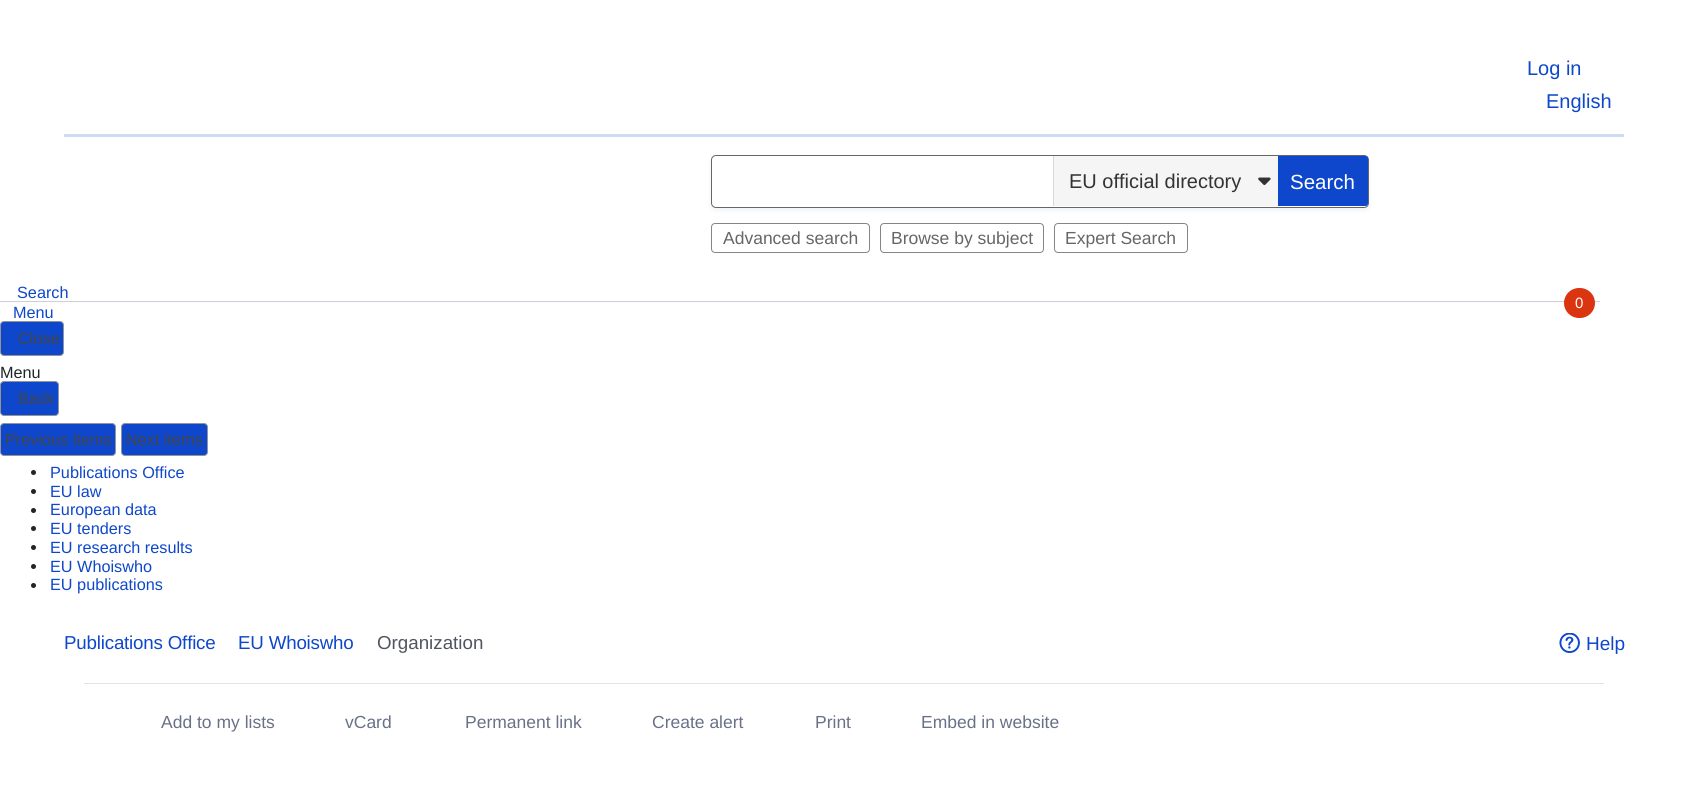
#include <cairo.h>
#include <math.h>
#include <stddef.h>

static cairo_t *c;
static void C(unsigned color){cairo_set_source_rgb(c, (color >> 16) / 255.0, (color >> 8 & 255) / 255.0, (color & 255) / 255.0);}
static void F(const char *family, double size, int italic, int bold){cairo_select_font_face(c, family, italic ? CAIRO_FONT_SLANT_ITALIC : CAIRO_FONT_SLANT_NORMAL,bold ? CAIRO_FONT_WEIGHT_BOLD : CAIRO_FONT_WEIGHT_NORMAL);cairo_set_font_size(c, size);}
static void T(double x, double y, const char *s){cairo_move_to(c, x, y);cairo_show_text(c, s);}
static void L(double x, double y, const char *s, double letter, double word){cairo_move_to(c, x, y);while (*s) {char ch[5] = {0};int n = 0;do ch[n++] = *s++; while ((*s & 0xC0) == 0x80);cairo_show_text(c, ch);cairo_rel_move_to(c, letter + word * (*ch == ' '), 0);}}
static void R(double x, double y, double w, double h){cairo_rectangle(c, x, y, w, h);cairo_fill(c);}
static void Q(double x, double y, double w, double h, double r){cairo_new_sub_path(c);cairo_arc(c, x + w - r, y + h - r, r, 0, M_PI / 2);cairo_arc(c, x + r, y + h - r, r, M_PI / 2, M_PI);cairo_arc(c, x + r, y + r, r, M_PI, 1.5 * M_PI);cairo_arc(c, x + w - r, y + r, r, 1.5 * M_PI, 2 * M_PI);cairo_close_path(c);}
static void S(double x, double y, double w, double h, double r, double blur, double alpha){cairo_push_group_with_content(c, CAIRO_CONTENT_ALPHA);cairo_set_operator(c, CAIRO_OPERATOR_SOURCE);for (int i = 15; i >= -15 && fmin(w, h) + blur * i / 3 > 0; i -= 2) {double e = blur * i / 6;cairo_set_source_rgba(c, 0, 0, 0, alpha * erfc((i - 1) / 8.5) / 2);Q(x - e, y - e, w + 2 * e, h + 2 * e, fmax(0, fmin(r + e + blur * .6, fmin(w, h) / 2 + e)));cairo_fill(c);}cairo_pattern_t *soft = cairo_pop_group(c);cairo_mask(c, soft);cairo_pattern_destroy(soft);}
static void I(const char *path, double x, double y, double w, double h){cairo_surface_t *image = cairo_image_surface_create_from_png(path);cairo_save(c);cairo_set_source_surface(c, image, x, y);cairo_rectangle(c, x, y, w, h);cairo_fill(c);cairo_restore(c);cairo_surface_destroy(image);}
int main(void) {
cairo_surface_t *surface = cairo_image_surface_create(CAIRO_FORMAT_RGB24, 1687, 794);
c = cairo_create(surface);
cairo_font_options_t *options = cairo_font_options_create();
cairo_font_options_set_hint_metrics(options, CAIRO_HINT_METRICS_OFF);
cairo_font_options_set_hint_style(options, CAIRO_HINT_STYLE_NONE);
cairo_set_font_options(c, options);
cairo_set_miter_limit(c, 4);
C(0xffffff);
cairo_paint(c);
F("Liberation Sans",20,0,0);
C(0x0e47cb);
T(1527,75,"Log in");
T(1546,108,"English");
C(0xcfdaf5);
R(64,134,1560,3);
cairo_save(c);
cairo_set_fill_rule(c,CAIRO_FILL_RULE_EVEN_ODD);
cairo_new_path(c);
cairo_move_to(c,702,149);
cairo_line_to(c,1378,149);
cairo_line_to(c,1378,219);
cairo_line_to(c,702,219);
cairo_close_path(c);
cairo_move_to(c,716,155);
cairo_line_to(c,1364,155);
cairo_curve_to(c,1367,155,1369,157,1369,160);
cairo_line_to(c,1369,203);
cairo_curve_to(c,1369,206,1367,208,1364,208);
cairo_line_to(c,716,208);
cairo_curve_to(c,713,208,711,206,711,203);
cairo_line_to(c,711,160);
cairo_curve_to(c,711,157,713,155,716,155);
cairo_close_path(c);
cairo_clip(c);
C(0x09318e);
S(711,158,658,52,5,2.5,.08);
cairo_restore(c);
Q(711.5,155.5,657,52,4.5);
C(0x666666);
cairo_set_line_width(c,1);
cairo_stroke(c);
C(0xf5f5f5);
R(1054,156,224,50);
I("1.png",1258,177,13,9);
C(0xd8d8d8);
R(1053,156,1,50);
C(0x333333);
T(1069,188,"EU official directory");
C(0x0e47cb);
cairo_new_path(c);
cairo_move_to(c,1278,156);
cairo_line_to(c,1365.5,156);
cairo_curve_to(c,1367,156,1368,157,1368,158.5);
cairo_line_to(c,1368,203.5);
cairo_curve_to(c,1368,205,1367,206,1365.5,206);
cairo_line_to(c,1278,206);
cairo_close_path(c);
cairo_fill(c);
F("Liberation Sans",20.5,0,0);
C(0xffffff);
T(1290,189,"Search");
Q(711.5,223.5,158,29,3.5);
C(0x858585);
cairo_stroke(c);
F("Liberation Sans",17.5,0,0);
C(0x666666);
T(723,244,"Advanced search");
Q(880.5,223.5,163,29,3.5);
C(0x858585);
cairo_stroke(c);
C(0x666666);
T(891,244,"Browse by subject");
Q(1054.5,223.5,133,29,3.5);
C(0x858585);
cairo_stroke(c);
C(0x666666);
T(1065,244,"Expert Search");
F("Liberation Sans",16.25,0,0);
C(0x0e47cb);
T(17,298,"Search");
C(0xcdced9);
R(0,301,1600,1);
C(0xda3510);
Q(1564,288,31,30,15);
cairo_fill(c);
F("Liberation Sans",15,0,0);
C(0xffffff);
T(1575,308,"0");
F("Liberation Sans",16.25,0,0);
C(0x0e47cb);
T(13,318,"Menu");
Q(.5,321.5,63,34,3.5);
cairo_fill_preserve(c);
C(0x949494);
cairo_stroke(c);
C(0x444444);
T(18,344,"Close");
C(0x212529);
T(0,378,"Menu");
C(0x0e47cb);
Q(.5,381.5,58,34,3.5);
cairo_fill_preserve(c);
C(0x949494);
cairo_stroke(c);
C(0x444444);
T(18,404,"Back");
C(0x0e47cb);
Q(.5,423.5,115,32,3.5);
cairo_fill_preserve(c);
C(0x949494);
cairo_stroke(c);
C(0x444444);
T(5,445,"Previous items");
C(0x0e47cb);
Q(121.5,423.5,86,32,3.5);
cairo_fill_preserve(c);
C(0x949494);
cairo_stroke(c);
C(0x444444);
T(126,445,"Next items");
C(0x212529);
cairo_new_path(c);
cairo_arc(c,33.5,472.5,2.5,0,2 * M_PI);
cairo_fill(c);
C(0x0e47cb);
T(50,478,"Publications Office");
C(0x212529);
cairo_new_path(c);
cairo_arc(c,33.5,491.5,2.5,0,2 * M_PI);
cairo_fill(c);
C(0x0e47cb);
T(50,497,"EU law");
C(0x212529);
cairo_new_path(c);
cairo_arc(c,33.5,510.5,2.5,0,2 * M_PI);
cairo_fill(c);
C(0x0e47cb);
T(50,515,"European data");
C(0x212529);
cairo_new_path(c);
cairo_arc(c,33.5,528.5,2.5,0,2 * M_PI);
cairo_fill(c);
C(0x0e47cb);
T(50,534,"EU tenders");
C(0x212529);
cairo_new_path(c);
cairo_arc(c,33.5,547.5,2.5,0,2 * M_PI);
cairo_fill(c);
C(0x0e47cb);
T(50,553,"EU research results");
C(0x212529);
cairo_new_path(c);
cairo_arc(c,33.5,566.5,2.5,0,2 * M_PI);
cairo_fill(c);
C(0x0e47cb);
T(50,572,"EU Whoiswho");
C(0x212529);
cairo_new_path(c);
cairo_arc(c,33.5,585.5,2.5,0,2 * M_PI);
cairo_fill(c);
C(0x0e47cb);
T(50,590,"EU publications");
F("Liberation Sans",18.75,0,0);
L(64,649,"Publications Office",-.2,0);
L(238,649,"EU Whoiswho",-.2,0);
C(0x515560);
T(377,649,"Organization");
I("2.png",1559,633,21,20);
F("Liberation Sans",19,0,0);
C(0x0e47cb);
T(1586,650,"Help");
C(0xe3e3e3);
R(84,683,1520,1);
F("Liberation Sans",17.5,0,0);
C(0x697188);
T(161,728,"Add to my lists");
T(345,728,"vCard");
T(465,728,"Permanent link");
T(652,728,"Create alert");
T(815,728,"Print");
T(921,728,"Embed in website");
cairo_surface_write_to_png(surface, "o.png");
cairo_font_options_destroy(options);
cairo_destroy(c);
cairo_surface_destroy(surface);
return 0;
}
